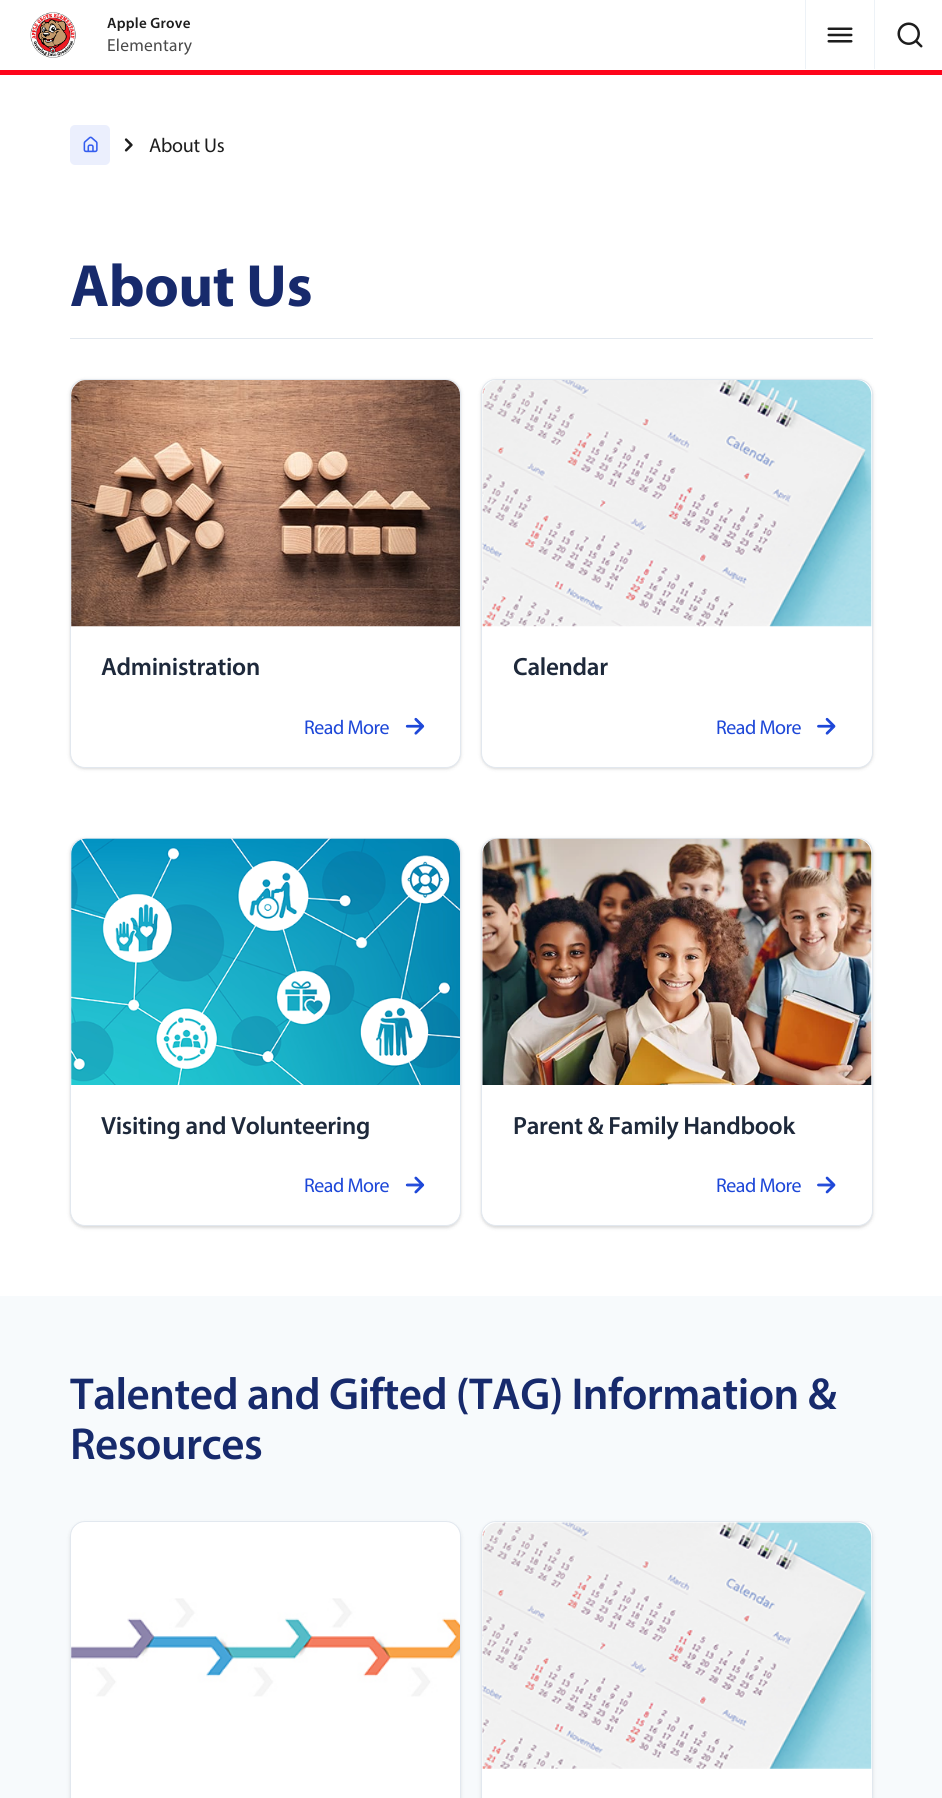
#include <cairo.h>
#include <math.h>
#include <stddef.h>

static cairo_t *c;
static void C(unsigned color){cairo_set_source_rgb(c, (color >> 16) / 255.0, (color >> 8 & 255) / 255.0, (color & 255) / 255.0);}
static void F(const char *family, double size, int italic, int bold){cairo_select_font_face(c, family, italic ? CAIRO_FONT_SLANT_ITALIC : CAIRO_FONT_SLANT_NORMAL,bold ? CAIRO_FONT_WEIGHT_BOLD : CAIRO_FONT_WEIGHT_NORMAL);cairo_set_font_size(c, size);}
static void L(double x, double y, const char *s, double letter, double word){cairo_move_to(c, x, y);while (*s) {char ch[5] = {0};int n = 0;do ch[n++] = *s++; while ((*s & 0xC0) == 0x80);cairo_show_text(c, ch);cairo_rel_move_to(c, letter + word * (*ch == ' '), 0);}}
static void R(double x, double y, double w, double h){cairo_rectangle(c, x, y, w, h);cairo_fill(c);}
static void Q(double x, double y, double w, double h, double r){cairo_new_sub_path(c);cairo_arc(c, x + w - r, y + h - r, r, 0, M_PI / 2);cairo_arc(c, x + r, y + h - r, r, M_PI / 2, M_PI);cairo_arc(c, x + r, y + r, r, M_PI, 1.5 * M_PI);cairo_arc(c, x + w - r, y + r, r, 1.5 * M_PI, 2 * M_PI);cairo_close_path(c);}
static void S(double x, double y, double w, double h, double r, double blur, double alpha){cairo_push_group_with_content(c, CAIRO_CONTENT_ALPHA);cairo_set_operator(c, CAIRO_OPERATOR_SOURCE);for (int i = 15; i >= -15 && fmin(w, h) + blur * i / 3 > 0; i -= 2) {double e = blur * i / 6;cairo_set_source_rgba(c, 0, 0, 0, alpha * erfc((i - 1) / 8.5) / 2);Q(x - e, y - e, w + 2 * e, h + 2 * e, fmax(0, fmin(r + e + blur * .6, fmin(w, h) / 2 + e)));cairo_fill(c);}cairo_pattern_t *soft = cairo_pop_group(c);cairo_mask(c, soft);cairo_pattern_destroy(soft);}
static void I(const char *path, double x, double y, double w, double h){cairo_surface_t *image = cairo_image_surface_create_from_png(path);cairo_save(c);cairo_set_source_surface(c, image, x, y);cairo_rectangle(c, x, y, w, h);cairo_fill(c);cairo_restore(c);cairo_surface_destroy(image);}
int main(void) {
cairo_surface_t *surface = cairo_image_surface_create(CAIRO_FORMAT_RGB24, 942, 1798);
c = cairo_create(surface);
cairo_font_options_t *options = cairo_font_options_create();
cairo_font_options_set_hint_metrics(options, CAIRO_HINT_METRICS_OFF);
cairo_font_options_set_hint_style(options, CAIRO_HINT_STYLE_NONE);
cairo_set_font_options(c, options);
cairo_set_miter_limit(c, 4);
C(0xffffff);
cairo_paint(c);
C(0xfe051b);
R(0,70,942,5);
I("1.png",30,12,46,46);
F("Myriad SemiBold",15,0,0);
C(0x1d1d1d);
L(107,28,"Apple Grove",.25,0);
F("Myriad",17.5,0,0);
C(0x4a4a4a);
L(107,51,"Elementary",.25,0);
C(0xedf2f7);
R(805,0,1,69);
I("2.png",827,27,26,16);
R(874,0,1,69);
I("3.png",897,22,26,26);
C(0xebeffd);
Q(70,125,40,40,5);
cairo_fill(c);
I("4.png",83,136,15,17);
I("5.png",124,138,9,14);
F("Myriad",20,0,0);
C(0x1d1d1d);
L(149,152,"About Us",-.25,0);
C(0xe2e8ef);
R(70,338,803,1);
F("Myriad",60,0,1);
C(0x172a6c);
L(70,306,"About Us",-.5,0);
C(0x000000);
S(70,380,391,389,15,2,.1);
S(70,380,391,389,15,1,.06);
C(0xffffff);
Q(70.5,379.5,390,388,14.5);
cairo_fill_preserve(c);
C(0xe2e8ef);
cairo_set_line_width(c,1);
cairo_stroke(c);
I("6.png",71,380,389,247);
F("Myriad SemiBold",25,0,0);
C(0x1e293b);
L(101,675,"Administration",-.3,0);
F("Myriad",20,0,0);
C(0x1d47d8);
L(304,734,"Read More",-.5,0);
I("7.png",405,717,20,18);
C(0x000000);
S(481,380,392,389,15,2,.1);
S(481,380,392,389,15,1,.06);
C(0xffffff);
Q(481.5,379.5,391,388,14.5);
cairo_fill_preserve(c);
C(0xe2e8ef);
cairo_stroke(c);
I("8.png",482,380,390,247);
F("Myriad SemiBold",25,0,0);
C(0x1e293b);
L(513,675,"Calendar",-.3,0);
F("Myriad",20,0,0);
C(0x1d47d8);
L(716,734,"Read More",-.5,0);
I("9.png",817,717,19,18);
C(0x000000);
S(70,839,391,389,15,2,.1);
S(70,839,391,389,15,1,.06);
C(0xffffff);
Q(70.5,838.5,390,387,14.5);
cairo_fill_preserve(c);
C(0xe2e8ef);
cairo_stroke(c);
I("10.png",71,838,389,247);
F("Myriad SemiBold",25,0,0);
C(0x1e293b);
L(101,1134,"Visiting and Volunteering",-.3,0);
F("Myriad",20,0,0);
C(0x1d47d8);
L(304,1192,"Read More",-.5,0);
I("11.png",405,1176,20,18);
C(0x000000);
S(481,839,392,389,15,2,.1);
S(481,839,392,389,15,1,.06);
C(0xffffff);
Q(481.5,838.5,391,387,14.5);
cairo_fill_preserve(c);
C(0xe2e8ef);
cairo_stroke(c);
I("12.png",482,838,390,247);
F("Myriad SemiBold",25,0,0);
C(0x1e293b);
L(513,1134,"Parent & Family Handbook",-.3,0);
F("Myriad",20,0,0);
C(0x1d47d8);
L(716,1192,"Read More",-.5,0);
I("13.png",817,1176,19,18);
C(0xf7fafc);
R(0,1296,942,502);
F("Myriad SemiBold",45,0,0);
C(0x172a6c);
L(70,1409,"Talented and Gifted (TAG) Information &",-.5,0);
L(70,1459,"Resources",-.5,0);
C(0x000000);
S(70,1523,391,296,15,2,.1);
C(0xffffff);
Q(70.5,1521.5,390,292,14.5);
cairo_fill_preserve(c);
C(0xe2e8ef);
cairo_stroke(c);
I("14.png",71,1598,389,99);
C(0x000000);
S(481,1523,392,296,15,2,.1);
C(0xffffff);
Q(481.5,1521.5,391,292,14.5);
cairo_fill_preserve(c);
C(0xe2e8ef);
cairo_stroke(c);
I("15.png",482,1522,390,247);
cairo_surface_write_to_png(surface, "o.png");
cairo_font_options_destroy(options);
cairo_destroy(c);
cairo_surface_destroy(surface);
return 0;
}
